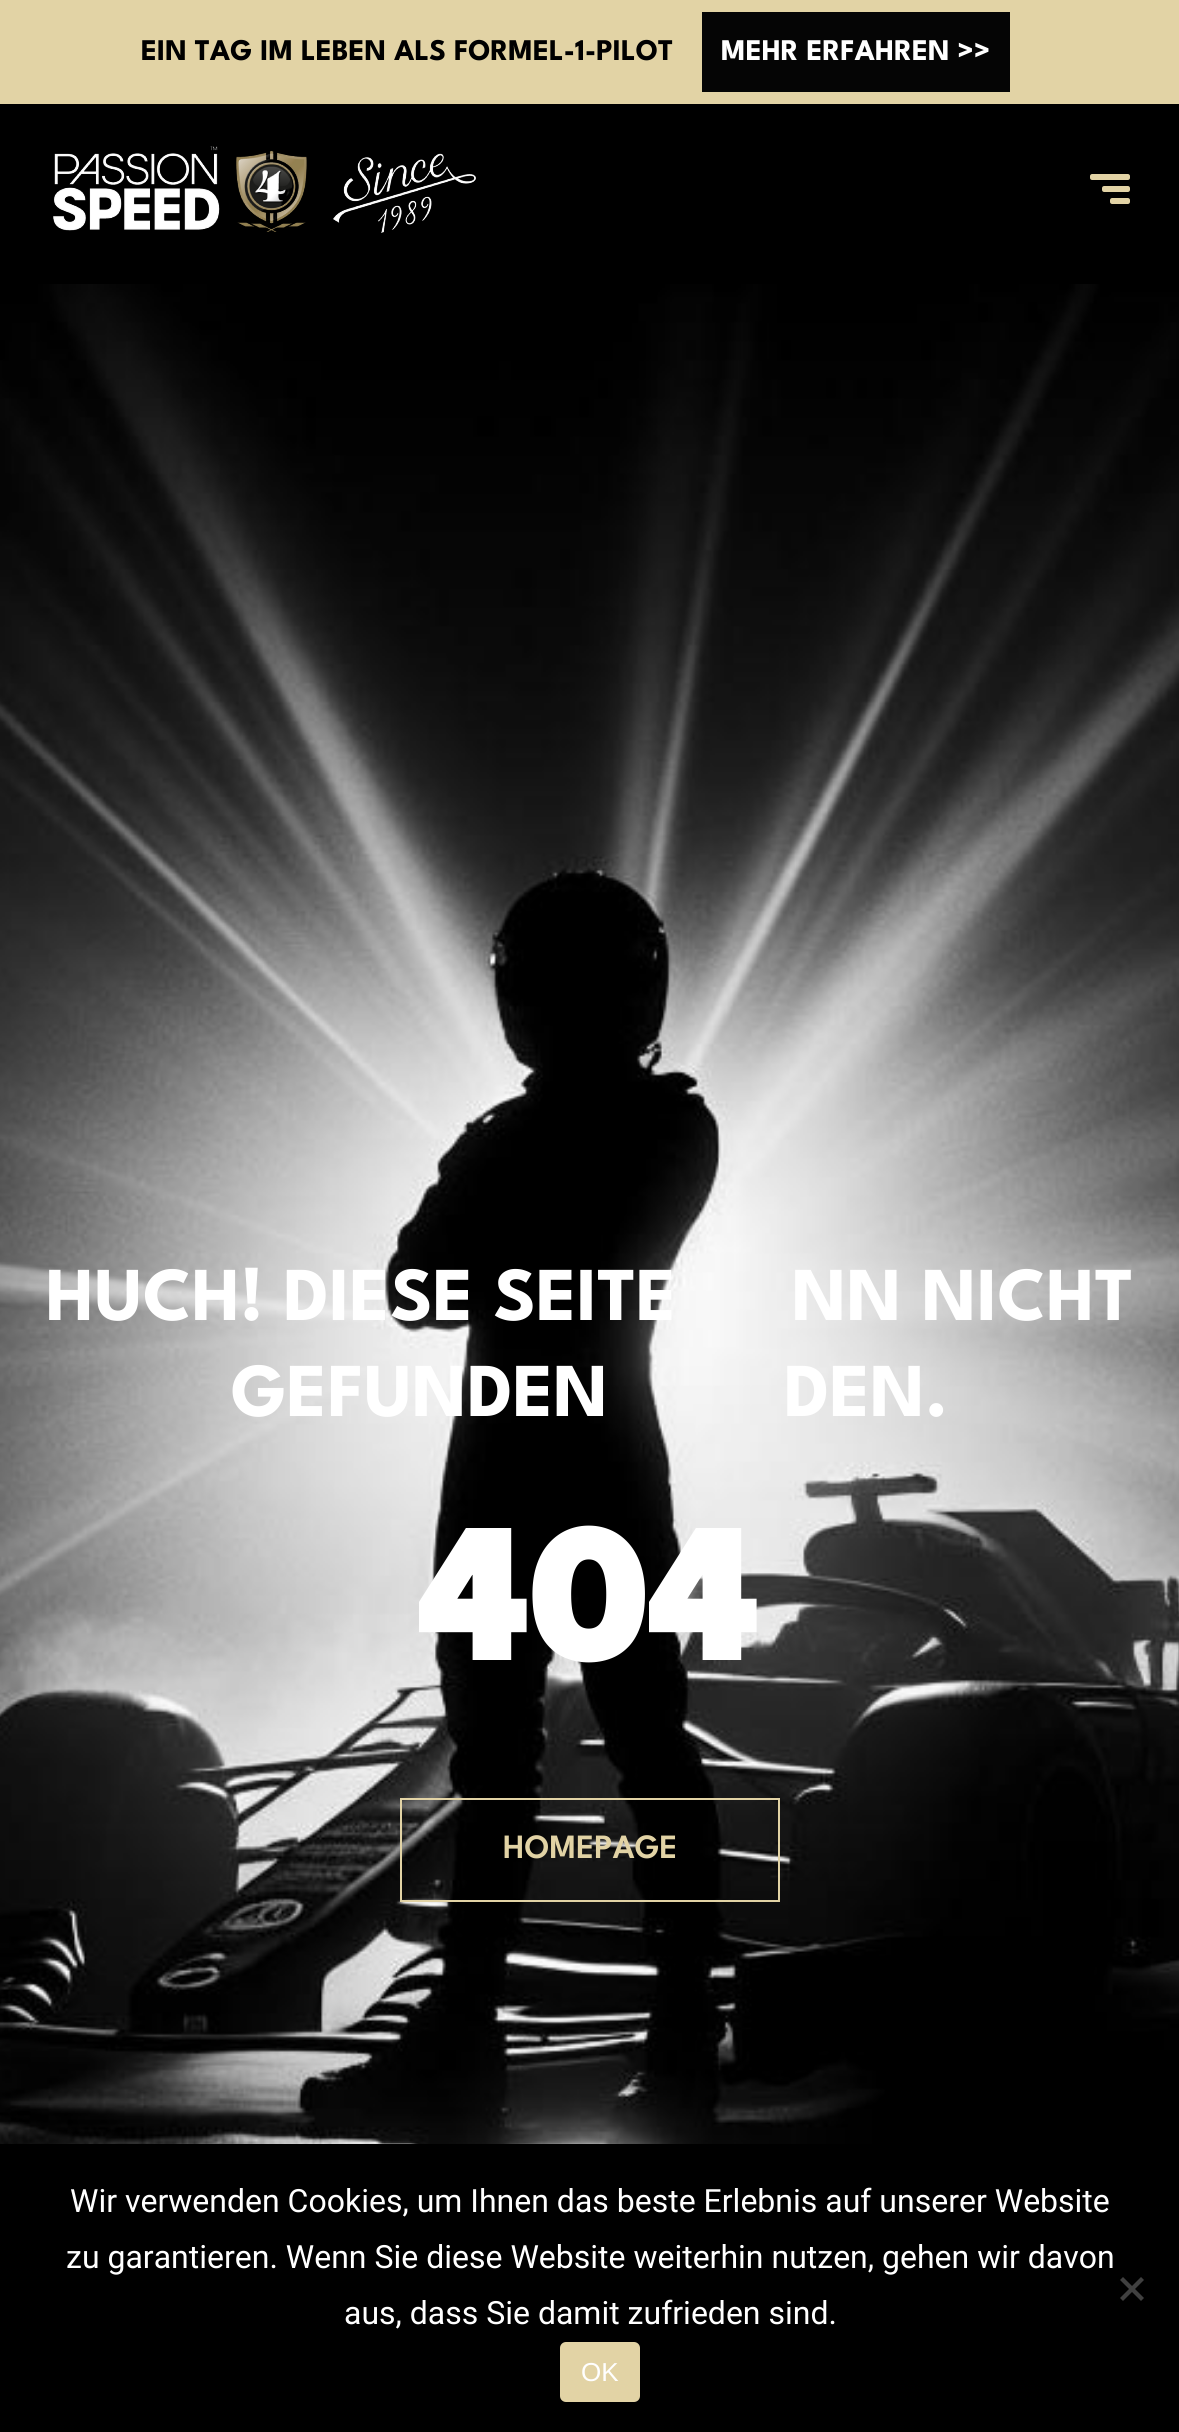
#include <cairo.h>
#include <math.h>
#include <stddef.h>

static cairo_t *c;
static void C(unsigned color){cairo_set_source_rgb(c, (color >> 16) / 255.0, (color >> 8 & 255) / 255.0, (color & 255) / 255.0);}
static void F(const char *family, double size, int italic, int bold){cairo_select_font_face(c, family, italic ? CAIRO_FONT_SLANT_ITALIC : CAIRO_FONT_SLANT_NORMAL,bold ? CAIRO_FONT_WEIGHT_BOLD : CAIRO_FONT_WEIGHT_NORMAL);cairo_set_font_size(c, size);}
static void T(double x, double y, const char *s){cairo_move_to(c, x, y);cairo_show_text(c, s);}
static void R(double x, double y, double w, double h){cairo_rectangle(c, x, y, w, h);cairo_fill(c);}
static void Q(double x, double y, double w, double h, double r){cairo_new_sub_path(c);cairo_arc(c, x + w - r, y + h - r, r, 0, M_PI / 2);cairo_arc(c, x + r, y + h - r, r, M_PI / 2, M_PI);cairo_arc(c, x + r, y + r, r, M_PI, 1.5 * M_PI);cairo_arc(c, x + w - r, y + r, r, 1.5 * M_PI, 2 * M_PI);cairo_close_path(c);}
static void I(const char *path, double x, double y, double w, double h){cairo_surface_t *image = cairo_image_surface_create_from_png(path);cairo_save(c);cairo_set_source_surface(c, image, x, y);cairo_rectangle(c, x, y, w, h);cairo_fill(c);cairo_restore(c);cairo_surface_destroy(image);}
int main(void) {
cairo_surface_t *surface = cairo_image_surface_create(CAIRO_FORMAT_RGB24, 1179, 2432);
c = cairo_create(surface);
cairo_font_options_t *options = cairo_font_options_create();
cairo_font_options_set_hint_metrics(options, CAIRO_HINT_METRICS_OFF);
cairo_font_options_set_hint_style(options, CAIRO_HINT_STYLE_NONE);
cairo_set_font_options(c, options);
cairo_set_miter_limit(c, 4);
C(0x000000);
cairo_paint(c);
C(0xe2d3a5);
R(0,0,1179,104);
F("League Spartan",30,0,1);
C(0x000000);
T(141,60,"EIN TAG IM LEBEN ALS FORMEL-1-PILOT");
C(0x050505);
R(702,12,308,80);
C(0xffffff);
T(721,60,"MEHR ERFAHREN >>");
I("1.png",53,146,423,87);
I("2.png",1090,174,40,30);
I("3.png",0,284,1179,1860);
F("League Spartan",76,0,1);
T(46,1320,"HUCH! DIESE SEITE");
T(792,1320,"NN NICHT");
T(231,1416,"GEFUNDEN");
T(784,1416,"DEN.");
F("League Spartan Black",200,0,0);
T(420,1660,"404");
cairo_rectangle(c,401,1799,378,102);
C(0xe2d3a5);
cairo_stroke(c);
F("League Spartan SemiBold",34,0,0);
T(503,1858,"HOMEPAGE");
F("Roboto",32,0,0);
C(0xffffff);
T(70,2212,"Wir verwenden Cookies, um Ihnen das beste Erlebnis auf unserer Website");
T(66,2268,"zu garantieren. Wenn Sie diese Website weiterhin nutzen, gehen wir davon");
T(344,2324,"aus, dass Sie damit zufrieden sind.");
C(0x404040);
cairo_new_path(c);
cairo_move_to(c,1141,2277);
cairo_line_to(c,1144,2280);
cairo_line_to(c,1123,2301);
cairo_line_to(c,1120,2298);
cairo_close_path(c);
cairo_fill(c);
cairo_new_path(c);
cairo_move_to(c,1120,2280);
cairo_line_to(c,1123,2277);
cairo_line_to(c,1144,2298);
cairo_line_to(c,1141,2301);
cairo_close_path(c);
cairo_fill(c);
C(0xe2d3a5);
Q(560,2342,80,60,6);
cairo_fill(c);
F("Liberation Sans",26,0,0);
C(0xffffff);
T(581,2381,"OK");
cairo_surface_write_to_png(surface, "o.png");
cairo_font_options_destroy(options);
cairo_destroy(c);
cairo_surface_destroy(surface);
return 0;
}
